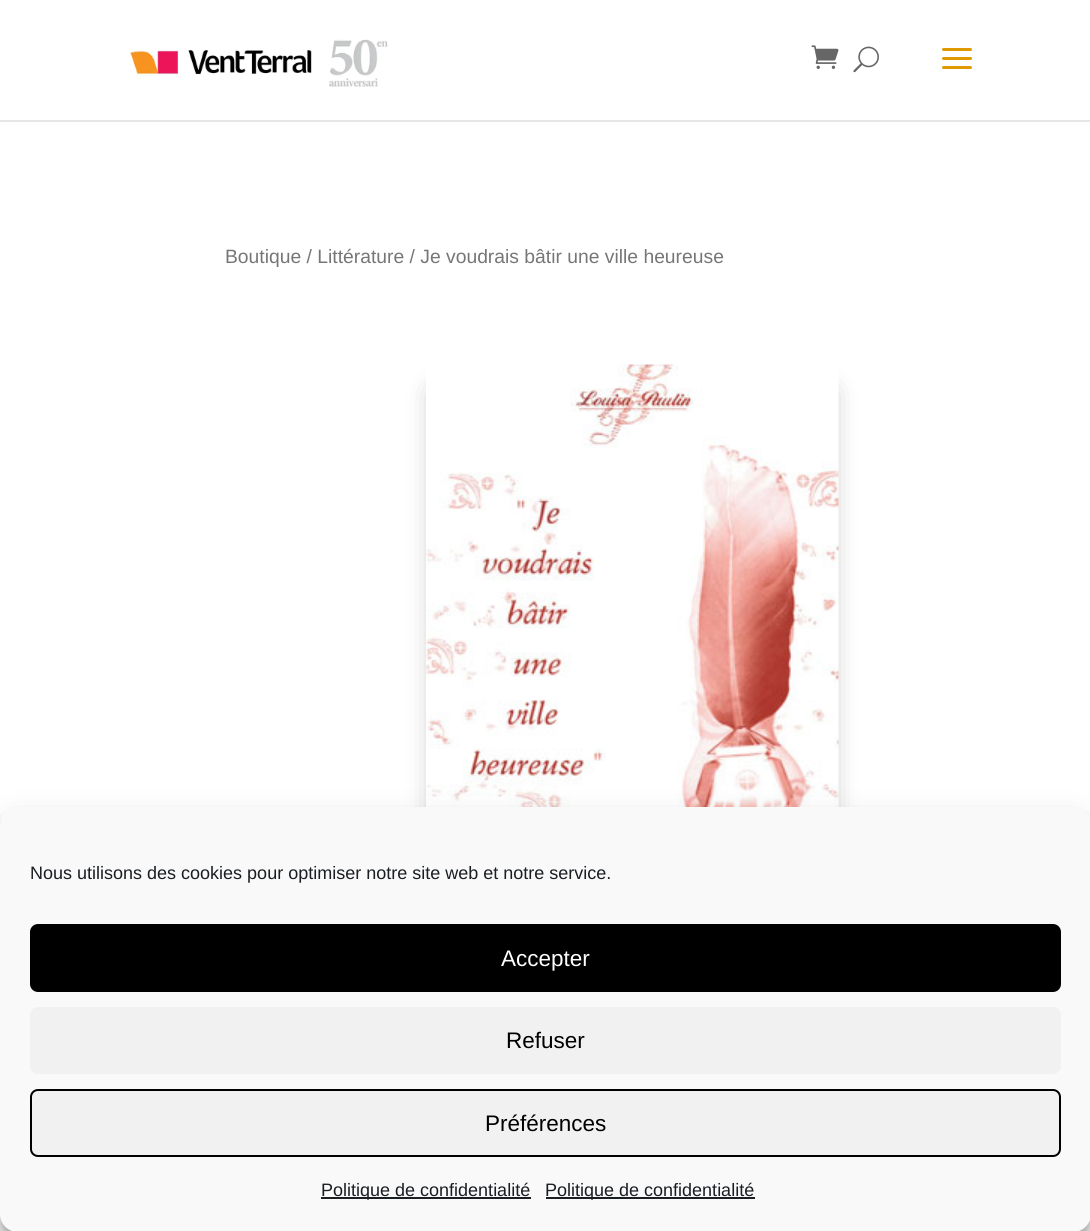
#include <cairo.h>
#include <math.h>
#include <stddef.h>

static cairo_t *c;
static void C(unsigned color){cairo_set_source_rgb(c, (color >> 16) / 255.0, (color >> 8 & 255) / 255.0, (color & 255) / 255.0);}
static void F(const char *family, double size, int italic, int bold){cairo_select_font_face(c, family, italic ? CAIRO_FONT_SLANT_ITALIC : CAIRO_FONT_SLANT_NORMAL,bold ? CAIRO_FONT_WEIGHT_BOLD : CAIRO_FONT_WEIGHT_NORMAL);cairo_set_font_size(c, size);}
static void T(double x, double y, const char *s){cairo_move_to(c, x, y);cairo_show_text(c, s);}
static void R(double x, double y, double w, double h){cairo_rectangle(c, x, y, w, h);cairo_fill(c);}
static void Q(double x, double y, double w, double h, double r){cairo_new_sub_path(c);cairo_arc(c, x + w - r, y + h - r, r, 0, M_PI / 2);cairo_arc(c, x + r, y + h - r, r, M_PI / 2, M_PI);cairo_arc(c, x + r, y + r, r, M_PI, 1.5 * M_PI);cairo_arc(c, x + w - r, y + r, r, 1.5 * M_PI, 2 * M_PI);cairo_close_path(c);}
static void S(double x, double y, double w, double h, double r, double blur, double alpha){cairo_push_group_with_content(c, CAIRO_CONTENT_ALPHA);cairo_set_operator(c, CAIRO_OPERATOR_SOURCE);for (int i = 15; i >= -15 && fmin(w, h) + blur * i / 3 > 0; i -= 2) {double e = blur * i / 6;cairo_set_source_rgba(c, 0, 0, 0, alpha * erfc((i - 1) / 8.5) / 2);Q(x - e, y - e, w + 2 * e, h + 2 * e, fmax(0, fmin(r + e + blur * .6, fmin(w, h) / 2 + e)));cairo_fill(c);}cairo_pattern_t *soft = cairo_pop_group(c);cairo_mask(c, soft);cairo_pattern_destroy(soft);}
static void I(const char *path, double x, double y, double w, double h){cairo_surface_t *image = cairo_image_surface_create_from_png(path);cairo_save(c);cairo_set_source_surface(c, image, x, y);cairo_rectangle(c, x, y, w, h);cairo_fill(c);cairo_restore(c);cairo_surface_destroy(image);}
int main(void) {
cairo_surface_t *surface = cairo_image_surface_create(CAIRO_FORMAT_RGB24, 1090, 1231);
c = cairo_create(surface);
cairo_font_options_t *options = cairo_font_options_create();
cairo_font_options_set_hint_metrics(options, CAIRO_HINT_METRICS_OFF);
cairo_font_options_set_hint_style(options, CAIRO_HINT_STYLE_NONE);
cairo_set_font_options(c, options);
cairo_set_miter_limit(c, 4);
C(0xffffff);
cairo_paint(c);
C(0xe6e6e6);
cairo_new_path(c);
cairo_move_to(c,0,120);
cairo_line_to(c,0,122);
cairo_line_to(c,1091,122);
cairo_line_to(c,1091,2);
cairo_line_to(c,1090,2);
cairo_line_to(c,1090,120);
cairo_close_path(c);
cairo_fill(c);
I("1.png",130,39,258,48);
I("2.png",811,45,28,24);
I("3.png",853,46,26,27);
I("4.png",942,48,30,21);
F("Liberation Sans",19.3,0,0);
C(0x767676);
T(225,263,"Boutique / Littérature / Je voudrais bâtir une ville heureuse");
C(0x000000);
S(435,392,395,550,0,13.5,.3);
I("5.png",426,364,413,443);
S(0,816,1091,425,18,4.5,.23);
S(0,822,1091,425,18,15,.19);
C(0xf9f9f9);
Q(0,807,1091,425,18);
cairo_fill(c);
F("Liberation Sans",18,0,0);
C(0x191e23);
T(30,879,"Nous utilisons des cookies pour optimiser notre site web et notre service.");
C(0x000000);
Q(31,925,1029,66,7);
cairo_fill_preserve(c);
cairo_stroke(c);
F("Liberation Sans",22.5,0,0);
C(0xffffff);
T(501,966,"Accepter");
C(0xf1f1f1);
Q(30,1007,1031,67,8);
cairo_fill(c);
C(0x000000);
T(506,1048,"Refuser");
C(0xf1f1f1);
Q(31,1090,1029,66,7);
cairo_fill_preserve(c);
C(0x000000);
cairo_stroke(c);
T(485,1131,"Préférences");
C(0x191e23);
R(321,1197,210,2);
F("Liberation Sans",18,0,0);
T(321,1196,"Politique de confidentialité");
R(546,1197,209,2);
T(545,1196,"Politique de confidentialité");
cairo_surface_write_to_png(surface, "o.png");
cairo_font_options_destroy(options);
cairo_destroy(c);
cairo_surface_destroy(surface);
return 0;
}
